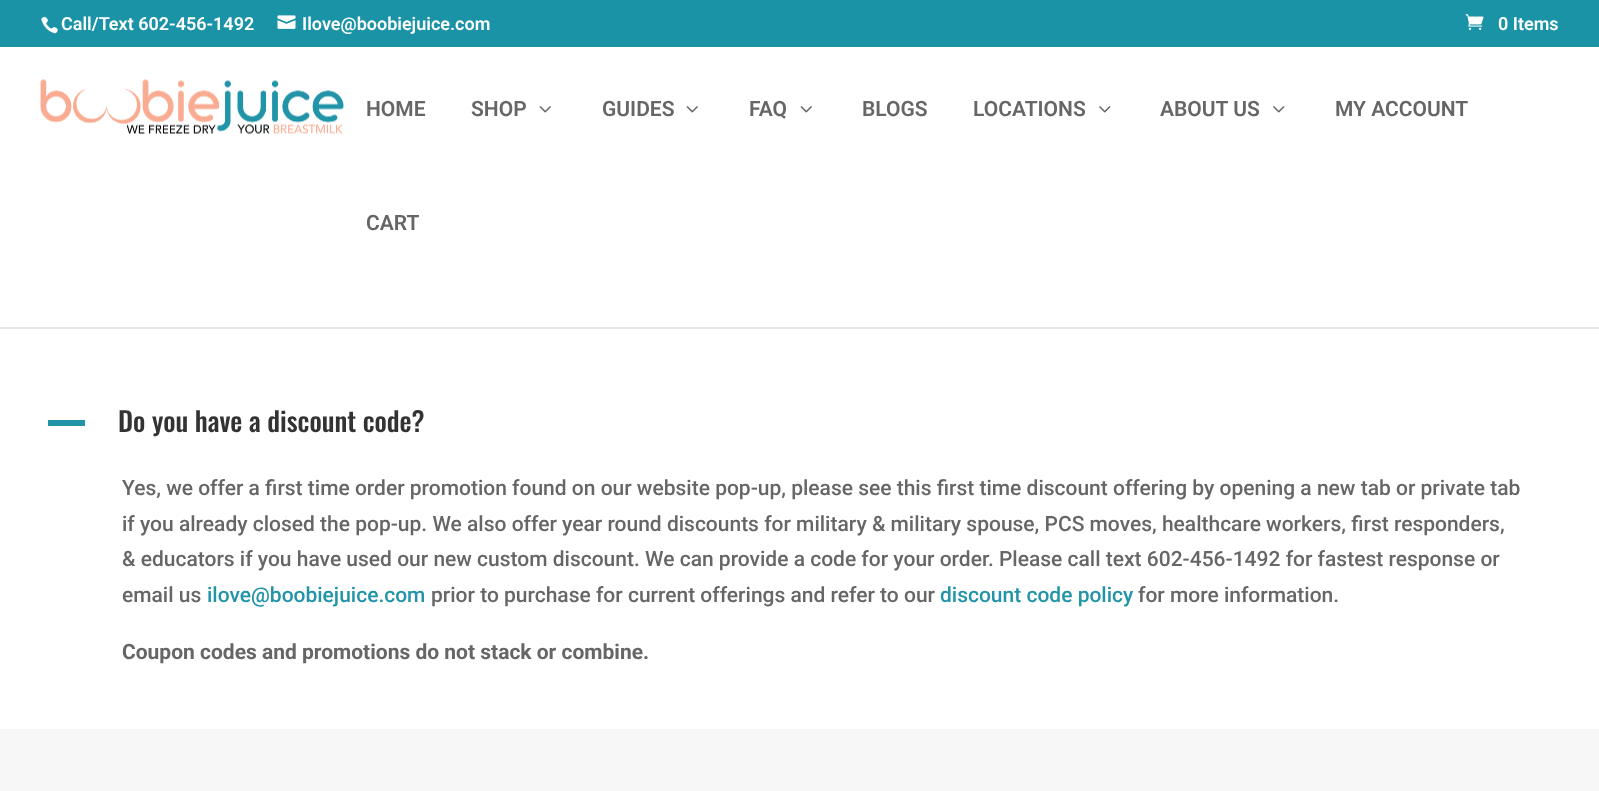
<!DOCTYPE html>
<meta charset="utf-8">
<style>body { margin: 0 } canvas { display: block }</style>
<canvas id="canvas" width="1599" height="791"></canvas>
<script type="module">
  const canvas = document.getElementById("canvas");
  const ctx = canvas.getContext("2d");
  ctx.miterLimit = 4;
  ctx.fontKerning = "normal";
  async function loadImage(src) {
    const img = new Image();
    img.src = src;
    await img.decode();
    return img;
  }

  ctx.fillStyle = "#ffffff";
  ctx.fillRect(0, 0, 1599, 791);
  ctx.fillStyle = "#1b93a7";
  ctx.fillRect(0, 0, 1599, 47);
  ctx.drawImage(await loadImage("img1.png"), 41, 16, 17, 18);
  ctx.font = "600 18px Roboto";
  ctx.fillStyle = "#ffffff";
  ctx.fillText("Call/Text 602-456-1492", 61, 30);
  ctx.drawImage(await loadImage("img2.png"), 277, 15, 19, 14);
  ctx.fillText("Ilove@boobiejuice.com", 302, 30);
  ctx.drawImage(await loadImage("img3.png"), 1465, 14, 19, 16);
  ctx.fillText("0 Items", 1498, 30);
  ctx.fillStyle = "rgba(0, 0, 0, 0.1)";
  ctx.fillRect(0, 327, 1599, 2);
  ctx.drawImage(await loadImage("img4.png"), 40, 79, 304, 55);
  ctx.font = "600 21px Roboto";
  ctx.fillStyle = "#666666";
  ctx.fillText("HOME", 366, 116);
  ctx.fillText("SHOP", 471, 116);
  ctx.drawImage(await loadImage("img5.png"), 539, 106, 12, 7);
  ctx.fillText("GUIDES", 602, 116);
  ctx.drawImage(await loadImage("img5.png"), 686, 106, 12, 7);
  ctx.fillText("FAQ", 749, 116);
  ctx.drawImage(await loadImage("img5.png"), 800, 106, 12, 7);
  ctx.fillText("BLOGS", 862, 116);
  ctx.fillText("LOCATIONS", 973, 116);
  ctx.drawImage(await loadImage("img6.png"), 1099, 106, 12, 7);
  ctx.fillText("ABOUT US", 1160, 116);
  ctx.drawImage(await loadImage("img6.png"), 1273, 106, 12, 7);
  ctx.fillText("MY ACCOUNT", 1335, 116);
  ctx.fillText("CART", 366, 230);
  ctx.fillStyle = "#2194a8";
  ctx.fillRect(48, 420, 37, 6);
  ctx.font = "500 27px Oswald";
  ctx.fillStyle = "#333333";
  ctx.fillText("Do you have a discount code?", 118, 432);
  ctx.font = "500 21px Roboto";
  ctx.fillStyle = "#666666";
  ctx.fillText("Yes, we offer a first time order promotion found on our website pop-up, please see this first time discount offering by opening a new tab or private tab", 122, 495);
  ctx.fillText("if you already closed the pop-up. We also offer year round discounts for military & military spouse, PCS moves, healthcare workers, first responders,", 122, 531);
  ctx.fillText("& educators if you have used our new custom discount. We can provide a code for your order. Please call text 602-456-1492 for fastest response or", 122, 566);
  ctx.fillText("email us", 122, 602);
  ctx.fillStyle = "#2194a8";
  ctx.fillText("ilove@boobiejuice.com", 207, 602);
  ctx.fillStyle = "#666666";
  ctx.fillText("prior to purchase for current offerings and refer to our", 431, 602);
  ctx.fillStyle = "#2194a8";
  ctx.fillText("discount code policy", 940, 602);
  ctx.fillStyle = "#666666";
  ctx.fillText("for more information.", 1138, 602);
  ctx.font = "bold 21px Roboto";
  ctx.fillText("Coupon codes and promotions do not stack or combine.", 122, 659);
  ctx.fillStyle = "#f7f7f7";
  ctx.fillRect(0, 729, 1599, 62);
</script>
